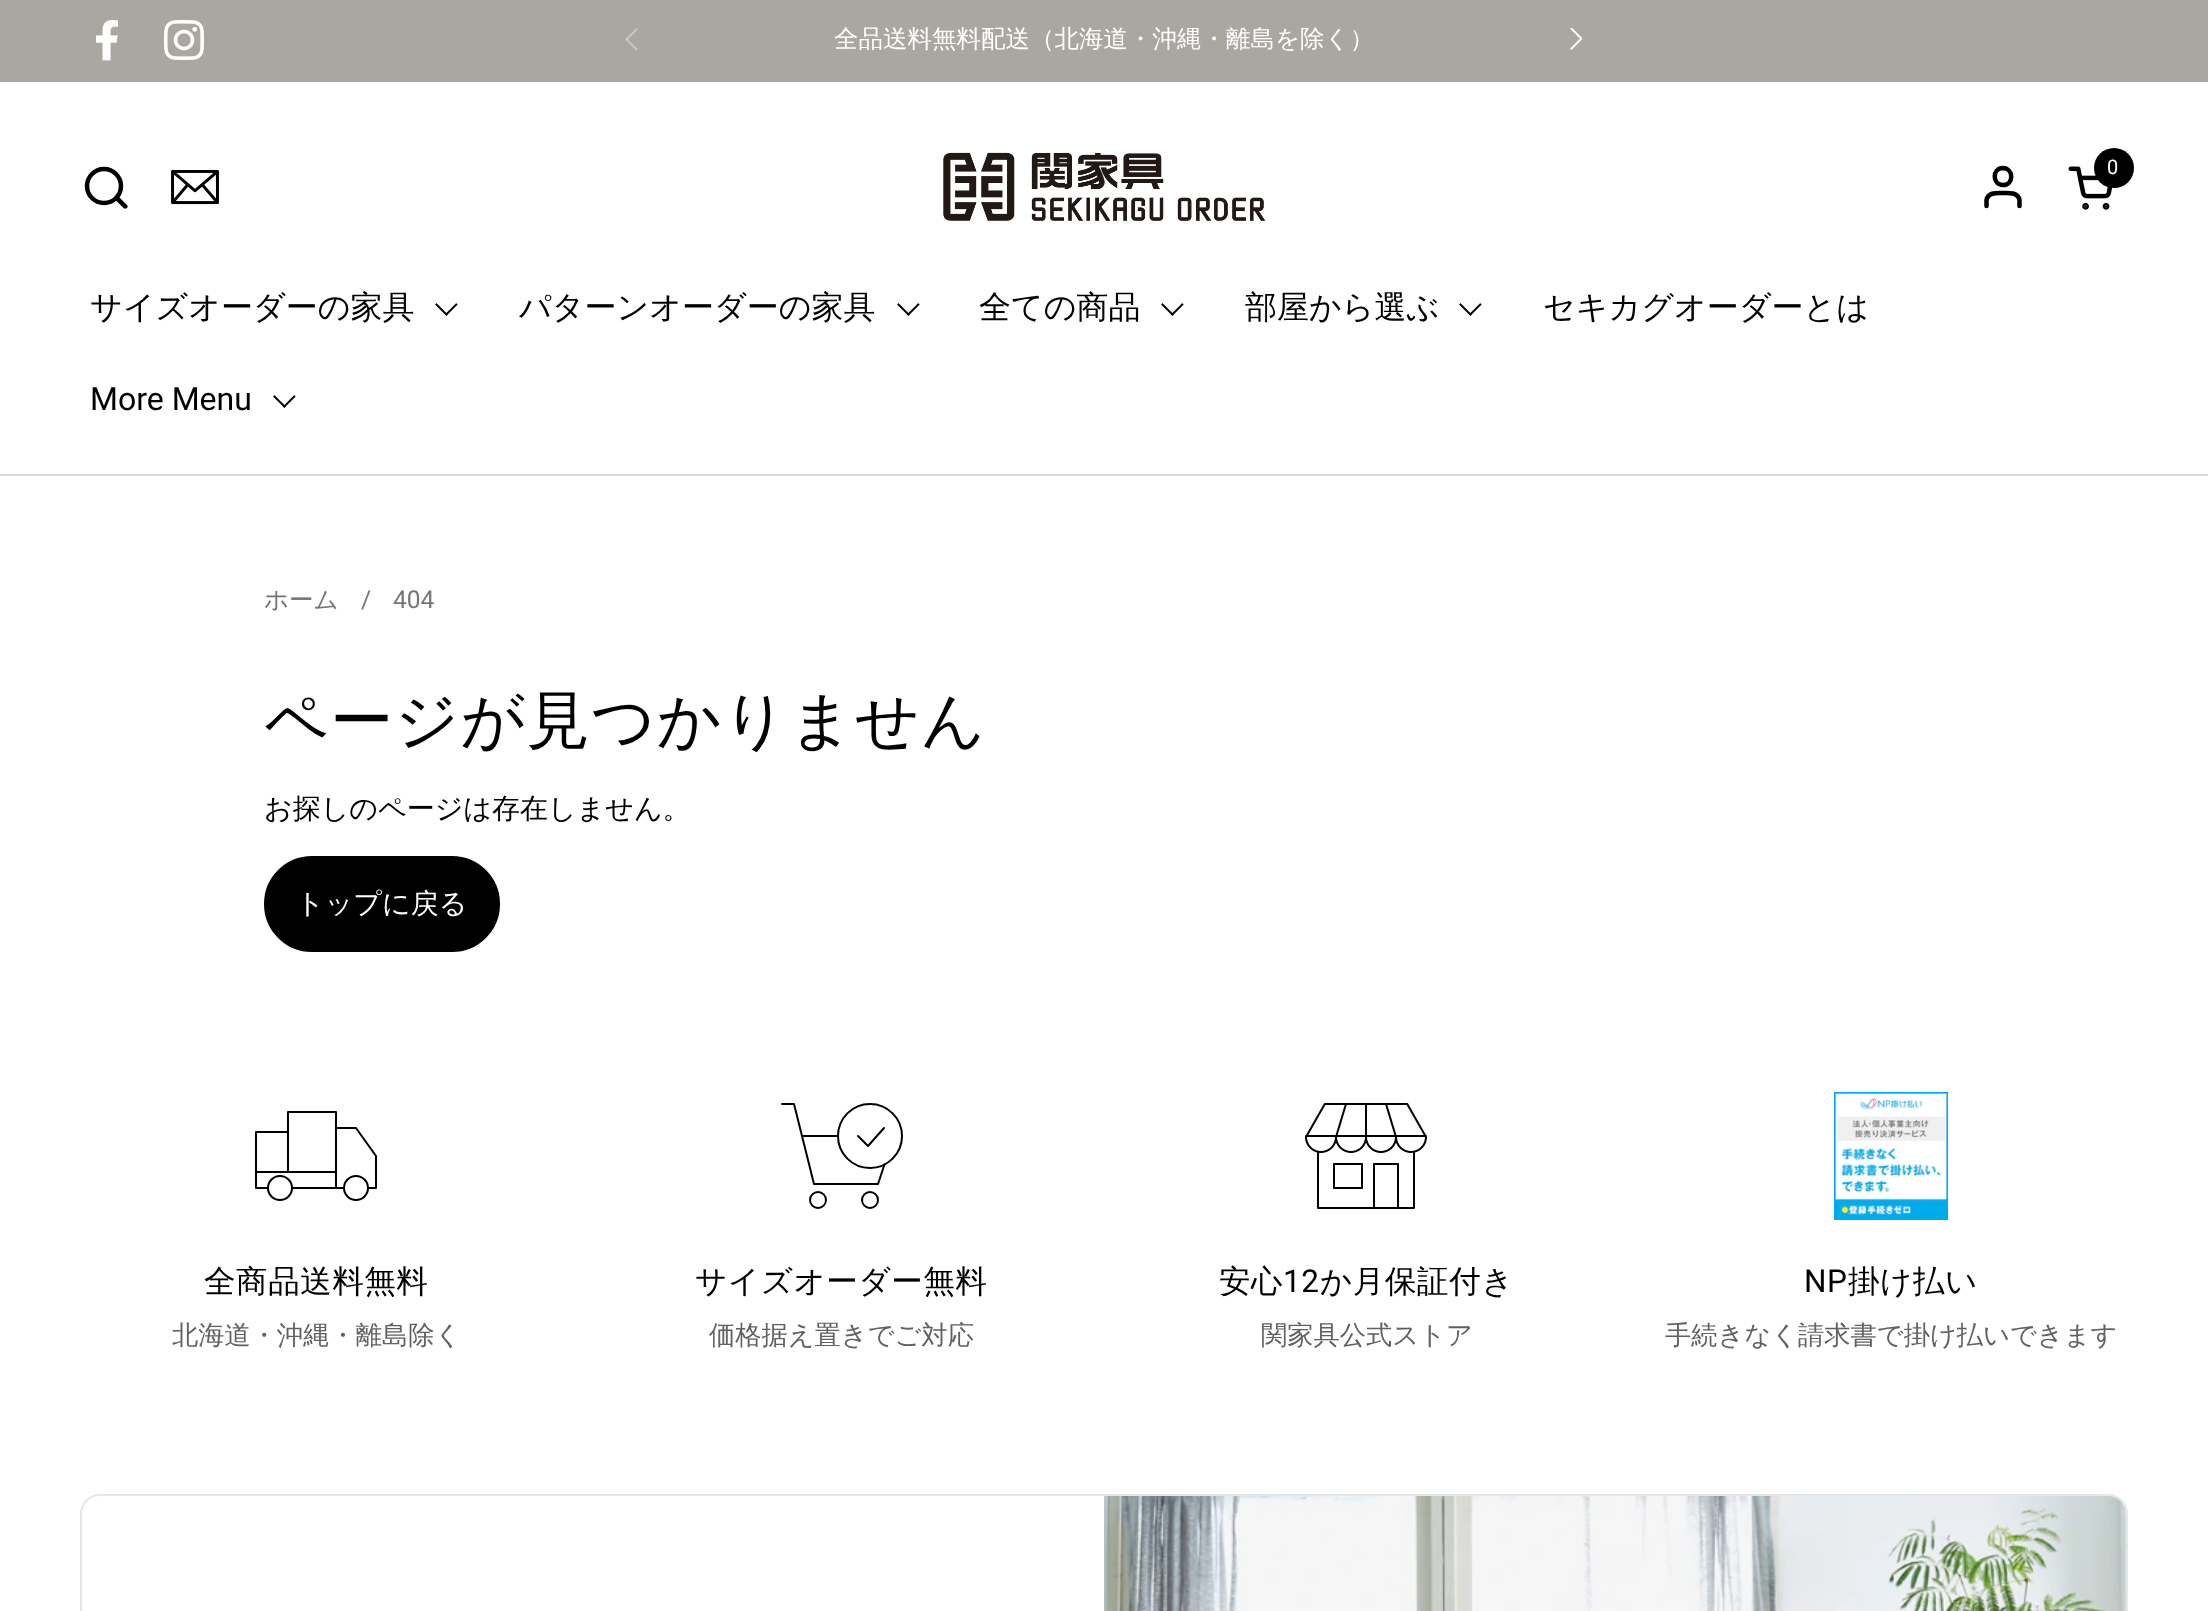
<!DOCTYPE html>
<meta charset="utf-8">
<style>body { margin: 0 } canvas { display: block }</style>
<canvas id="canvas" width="2208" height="1611"></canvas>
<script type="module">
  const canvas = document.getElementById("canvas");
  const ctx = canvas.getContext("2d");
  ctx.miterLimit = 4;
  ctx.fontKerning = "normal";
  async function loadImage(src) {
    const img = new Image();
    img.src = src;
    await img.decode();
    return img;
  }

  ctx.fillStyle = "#ffffff";
  ctx.fillRect(0, 0, 2208, 1611);
  ctx.fillStyle = "#aaa6a0";
  ctx.fillRect(0, 0, 2208, 82);
  ctx.drawImage(await loadImage("img1.png"), 96, 20, 22, 41);
  ctx.drawImage(await loadImage("img2.png"), 164, 20, 40, 40);
  ctx.drawImage(await loadImage("img3.png"), 626, 28, 12, 23);
  ctx.font = "500 24.5px WenQuanYi Zen Hei";
  ctx.fillStyle = "#ffffff";
  ctx.fillText("全品送料無料配送（北海道・沖縄・離島を除く）", 834, 47);
  ctx.drawImage(await loadImage("img4.png"), 1570, 28, 12, 22);
  ctx.beginPath();
  ctx.arc(104, 186, 17, 0, Math.PI * 2);
  ctx.strokeStyle = "#000000";
  ctx.lineWidth = 4.5;
  ctx.stroke();
  ctx.fillStyle = "#000000";
  ctx.beginPath();
  ctx.moveTo(119, 197);
  ctx.lineTo(117.5, 195);
  ctx.lineTo(114, 198.5);
  ctx.lineTo(115.5, 200);
  ctx.closePath();
  ctx.moveTo(123.5, 208);
  ctx.bezierCurveTo(126, 210, 129, 207, 127, 205);
  ctx.closePath();
  ctx.moveTo(115.5, 200);
  ctx.lineTo(123.5, 208);
  ctx.lineTo(127, 205);
  ctx.lineTo(119, 197);
  ctx.closePath();
  ctx.fill();
  ctx.drawImage(await loadImage("img5.png"), 171, 170, 48, 35);
  ctx.drawImage(await loadImage("img6.png"), 943, 152, 323, 69);
  ctx.beginPath();
  ctx.moveTo(2019.5, 206);
  ctx.lineTo(2019.5, 200);
  ctx.bezierCurveTo(2018, 192, 2009, 193, 2003, 193);
  ctx.bezierCurveTo(1997, 193, 1988, 192, 1986.5, 200);
  ctx.lineTo(1986.5, 206);
  ctx.moveTo(2003, 185);
  ctx.bezierCurveTo(2014, 185, 2014, 168.5, 2003, 168);
  ctx.bezierCurveTo(1992, 168, 1992, 185, 2003, 185);
  ctx.closePath();
  ctx.lineCap = "round";
  ctx.lineJoin = "round";
  ctx.stroke();
  ctx.beginPath();
  ctx.arc(2114, 168, 20, 0, Math.PI * 2);
  ctx.fill();
  ctx.font = "20px Roboto";
  ctx.fillStyle = "#ffffff";
  ctx.fillText("0", 2107, 174);
  ctx.drawImage(await loadImage("img7.png"), 2068, 166, 44, 44);
  ctx.font = "500 32px WenQuanYi Zen Hei";
  ctx.fillStyle = "#000000";
  ctx.fillText("サイズオーダーの家具", 90, 318);
  ctx.drawImage(await loadImage("img8.png"), 435, 303, 23, 13);
  ctx.fillText("パターンオーダーの家具", 519, 318);
  ctx.drawImage(await loadImage("img8.png"), 897, 303, 23, 13);
  ctx.fillText("全ての商品", 979, 318);
  ctx.drawImage(await loadImage("img8.png"), 1161, 303, 23, 13);
  ctx.fillText("部屋から選ぶ", 1245, 318);
  ctx.drawImage(await loadImage("img8.png"), 1459, 303, 23, 13);
  ctx.fillText("セキカグオーダーとは", 1543, 318);
  ctx.font = "32px Roboto";
  ctx.fillText("More Menu", 90, 410);
  ctx.drawImage(await loadImage("img8.png"), 273, 395, 23, 13);
  ctx.fillStyle = "#d9d9d9";
  ctx.fillRect(0, 474, 2208, 2);
  ctx.font = "500 24.5px WenQuanYi Zen Hei";
  ctx.fillStyle = "#757575";
  ctx.fillText("ホーム", 264, 608);
  ctx.font = "24.5px Roboto";
  ctx.fillText("/", 361, 608);
  ctx.fillText("404", 393, 608);
  ctx.letterSpacing = "1.25px";
  ctx.font = "500 63.25px WenQuanYi Zen Hei";
  ctx.fillStyle = "#000000";
  ctx.fillText("ページが見つかりません", 264, 742);
  ctx.letterSpacing = "0px";
  ctx.font = "500 28px WenQuanYi Zen Hei";
  ctx.fillText("お探しのページは存在しません。", 264, 818);
  ctx.beginPath();
  ctx.roundRect(265, 857, 234, 94, 47);
  ctx.fill();
  ctx.lineWidth = 2;
  ctx.lineJoin = "miter";
  ctx.stroke();
  ctx.fillStyle = "#ffffff";
  ctx.fillText("トップに戻る", 296, 913);
  ctx.beginPath();
  ctx.moveTo(256, 1172);
  ctx.lineTo(256, 1132);
  ctx.lineTo(288, 1132);
  ctx.moveTo(288, 1172);
  ctx.lineTo(288, 1112);
  ctx.lineTo(336, 1112);
  ctx.lineTo(336, 1128);
  ctx.lineJoin = "round";
  ctx.stroke();
  ctx.beginPath();
  ctx.moveTo(336, 1172);
  ctx.lineTo(336, 1128);
  ctx.lineTo(356, 1128);
  ctx.lineTo(376, 1156);
  ctx.lineTo(376, 1188);
  ctx.lineTo(368, 1188);
  ctx.stroke();
  ctx.beginPath();
  ctx.arc(280, 1188, 12, 0, Math.PI * 2);
  ctx.stroke();
  ctx.beginPath();
  ctx.arc(356, 1188, 12, 0, Math.PI * 2);
  ctx.stroke();
  ctx.beginPath();
  ctx.moveTo(268, 1188);
  ctx.lineTo(256, 1188);
  ctx.lineTo(256, 1172);
  ctx.lineTo(336, 1172);
  ctx.lineTo(336, 1188);
  ctx.lineTo(292, 1188);
  ctx.moveTo(336, 1188);
  ctx.lineTo(344, 1188);
  ctx.stroke();
  ctx.letterSpacing = "0.6px";
  ctx.font = "500 31.5px WenQuanYi Zen Hei";
  ctx.fillStyle = "#000000";
  ctx.fillText("全商品送料無料", 204, 1292);
  ctx.letterSpacing = "0px";
  ctx.font = "500 26.25px WenQuanYi Zen Hei";
  ctx.fillStyle = "#616161";
  ctx.fillText("北海道・沖縄・離島除く", 172, 1344);
  ctx.beginPath();
  ctx.moveTo(838, 1136);
  ctx.lineTo(802, 1136);
  ctx.moveTo(782, 1104);
  ctx.lineTo(794, 1104);
  ctx.lineTo(814, 1184);
  ctx.lineTo(878, 1184);
  ctx.lineTo(884.5, 1164.5);
  ctx.stroke();
  ctx.beginPath();
  ctx.arc(818, 1200, 8, 0, Math.PI * 2);
  ctx.stroke();
  ctx.beginPath();
  ctx.arc(870, 1200, 8, 0, Math.PI * 2);
  ctx.stroke();
  ctx.beginPath();
  ctx.arc(870, 1136, 32, 0, Math.PI * 2);
  ctx.stroke();
  ctx.beginPath();
  ctx.moveTo(884, 1128);
  ctx.lineTo(868, 1146);
  ctx.lineTo(858, 1136);
  ctx.stroke();
  ctx.letterSpacing = "0.6px";
  ctx.font = "500 31.5px WenQuanYi Zen Hei";
  ctx.fillStyle = "#000000";
  ctx.fillText("サイズオーダー無料", 695, 1292);
  ctx.letterSpacing = "0px";
  ctx.font = "500 26.25px WenQuanYi Zen Hei";
  ctx.fillStyle = "#616161";
  ctx.fillText("価格据え置きでご対応", 709, 1344);
  ctx.drawImage(await loadImage("img9.png"), 1305, 1103, 122, 106);
  ctx.letterSpacing = "0.6px";
  ctx.font = "500 31.5px WenQuanYi Zen Hei";
  ctx.fillStyle = "#000000";
  ctx.fillText("安心", 1219, 1292);
  ctx.font = "31.5px Roboto";
  ctx.fillText("12", 1283, 1292);
  ctx.font = "500 31.5px WenQuanYi Zen Hei";
  ctx.fillText("か月保証付き", 1320, 1292);
  ctx.letterSpacing = "0px";
  ctx.font = "500 26.25px WenQuanYi Zen Hei";
  ctx.fillStyle = "#616161";
  ctx.fillText("関家具公式ストア", 1261, 1344);
  ctx.drawImage(await loadImage("img10.png"), 1834, 1092, 114, 128);
  ctx.letterSpacing = "0.6px";
  ctx.font = "31.5px Roboto";
  ctx.fillStyle = "#000000";
  ctx.fillText("NP", 1804, 1292);
  ctx.font = "500 31.5px WenQuanYi Zen Hei";
  ctx.fillText("掛け払い", 1848, 1292);
  ctx.letterSpacing = "0px";
  ctx.font = "500 26.25px WenQuanYi Zen Hei";
  ctx.fillStyle = "#616161";
  ctx.fillText("手続きなく請求書で掛け払いできます", 1665, 1344);
  ctx.beginPath();
  ctx.roundRect(81, 1495, 2046, 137, 19);
  ctx.strokeStyle = "#e6e6e6";
  ctx.lineJoin = "miter";
  ctx.stroke();
  ctx.drawImage(await loadImage("img11.png"), 1104, 1496, 1022, 115);
</script>
